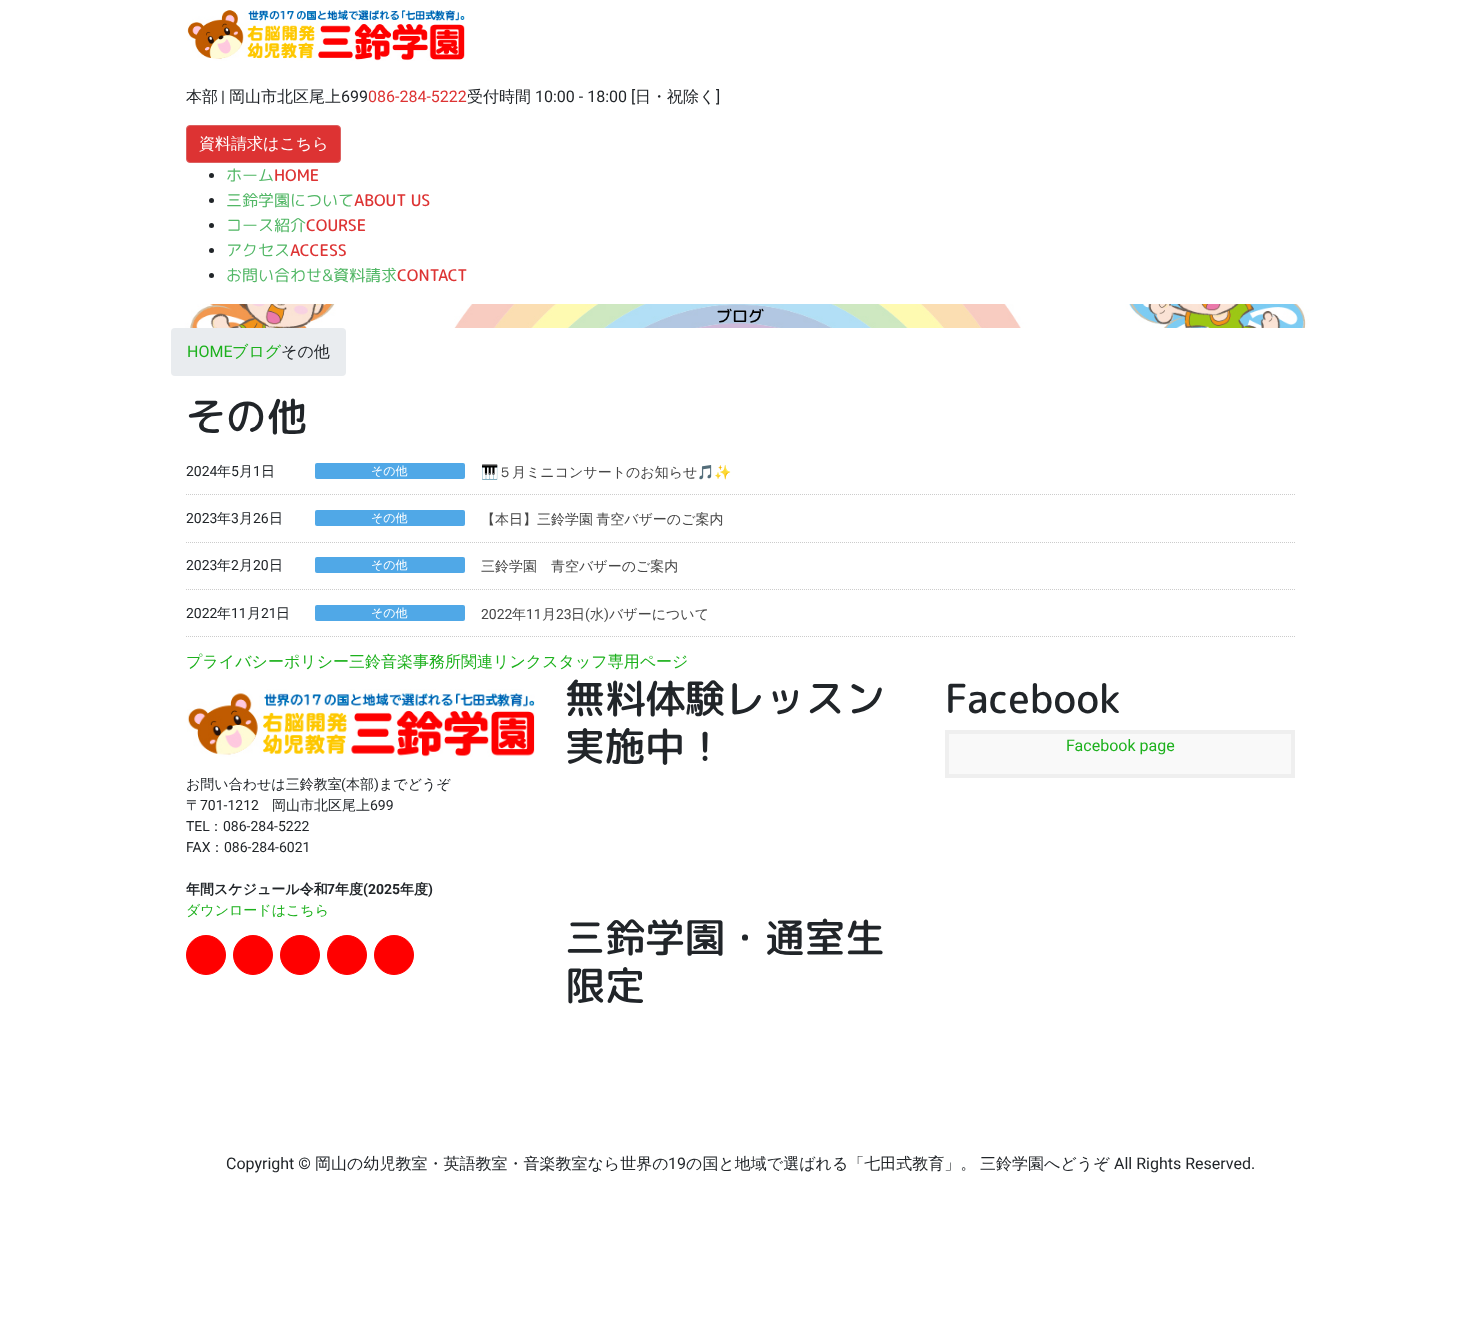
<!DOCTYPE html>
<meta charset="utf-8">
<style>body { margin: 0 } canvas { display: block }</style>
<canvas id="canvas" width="1481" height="1334"></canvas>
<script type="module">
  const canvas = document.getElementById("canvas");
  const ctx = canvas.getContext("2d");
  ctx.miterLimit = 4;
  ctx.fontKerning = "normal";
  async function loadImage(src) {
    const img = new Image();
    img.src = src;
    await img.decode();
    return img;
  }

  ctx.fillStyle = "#ffffff";
  ctx.fillRect(0, 0, 1481, 1334);
  ctx.drawImage(await loadImage("img1.png"), 187, 10, 278, 51);
  ctx.font = "500 16px WenQuanYi Zen Hei";
  ctx.fillStyle = "#212529";
  ctx.fillText("本部", 186, 102);
  ctx.font = "16px Roboto";
  ctx.fillText("|", 221, 102);
  ctx.font = "500 16px WenQuanYi Zen Hei";
  ctx.fillText("岡山市北区尾上", 229, 102);
  ctx.font = "16px Roboto";
  ctx.fillText("699", 341, 102);
  ctx.fillStyle = "#dd3333";
  ctx.fillText("086-284-5222", 368, 102);
  ctx.font = "500 16px WenQuanYi Zen Hei";
  ctx.fillStyle = "#212529";
  ctx.fillText("受付時間", 467, 102);
  ctx.font = "16px Roboto";
  ctx.fillText("10:00 - 18:00 [", 535, 102);
  ctx.font = "500 16px WenQuanYi Zen Hei";
  ctx.fillText("日・祝除く", 635, 102);
  ctx.font = "16px Roboto";
  ctx.fillText("]", 716, 102);
  ctx.fillStyle = "#dd3333";
  ctx.beginPath();
  ctx.roundRect(186.5, 125.5, 154, 37, 3.5);
  ctx.fill();
  ctx.strokeStyle = "#dd6161";
  ctx.stroke();
  ctx.font = "500 16px WenQuanYi Zen Hei";
  ctx.fillStyle = "#ffffff";
  ctx.fillText("資料請求はこちら", 199, 149);
  ctx.fillStyle = "#212529";
  ctx.beginPath();
  ctx.arc(211.5, 175.5, 2.5, 0, Math.PI * 2);
  ctx.fill();
  ctx.font = "16px 'Rounded Mplus 1c'";
  ctx.fillStyle = "#52b766";
  ctx.fillText("ホーム", 226, 181);
  ctx.font = "500 16px 'Rounded Mplus 1c'";
  ctx.fillStyle = "#dd3333";
  ctx.fillText("HOME", 274, 181);
  ctx.fillStyle = "#212529";
  ctx.beginPath();
  ctx.arc(211.5, 200.5, 2.5, 0, Math.PI * 2);
  ctx.fill();
  ctx.font = "16px 'Rounded Mplus 1c'";
  ctx.fillStyle = "#52b766";
  ctx.fillText("三鈴学園について", 226, 206);
  ctx.font = "500 16px 'Rounded Mplus 1c'";
  ctx.fillStyle = "#dd3333";
  ctx.fillText("ABOUT US", 354, 206);
  ctx.fillStyle = "#212529";
  ctx.beginPath();
  ctx.arc(211.5, 225.5, 2.5, 0, Math.PI * 2);
  ctx.fill();
  ctx.font = "16px 'Rounded Mplus 1c'";
  ctx.fillStyle = "#52b766";
  ctx.fillText("コース紹介", 226, 231);
  ctx.font = "500 16px 'Rounded Mplus 1c'";
  ctx.fillStyle = "#dd3333";
  ctx.fillText("COURSE", 306, 231);
  ctx.fillStyle = "#212529";
  ctx.beginPath();
  ctx.arc(211.5, 250.5, 2.5, 0, Math.PI * 2);
  ctx.fill();
  ctx.font = "16px 'Rounded Mplus 1c'";
  ctx.fillStyle = "#52b766";
  ctx.fillText("アクセス", 226, 256);
  ctx.font = "500 16px 'Rounded Mplus 1c'";
  ctx.fillStyle = "#dd3333";
  ctx.fillText("ACCESS", 290, 256);
  ctx.fillStyle = "#212529";
  ctx.beginPath();
  ctx.arc(211.5, 275.5, 2.5, 0, Math.PI * 2);
  ctx.fill();
  ctx.font = "16px 'Rounded Mplus 1c'";
  ctx.fillStyle = "#52b766";
  ctx.fillText("お問い合わせ&資料請求", 226, 281);
  ctx.font = "500 16px 'Rounded Mplus 1c'";
  ctx.fillStyle = "#dd3333";
  ctx.fillText("CONTACT", 397, 281);
  ctx.drawImage(await loadImage("img2.png"), 0, 304, 1481, 24);
  ctx.fillStyle = "#000000";
  ctx.fillText("ブログ", 716, 322);
  ctx.fillStyle = "#e9ecef";
  ctx.beginPath();
  ctx.roundRect(171, 328, 175, 48, 4);
  ctx.fill();
  ctx.font = "16px Roboto";
  ctx.fillStyle = "#1db11d";
  ctx.fillText("HOME", 187, 357);
  ctx.font = "500 16px WenQuanYi Zen Hei";
  ctx.fillText("ブログ", 232, 357);
  ctx.fillStyle = "#212529";
  ctx.fillText("その他", 281, 357);
  ctx.font = "500 40px 'Rounded Mplus 1c'";
  ctx.fillText("その他", 186, 431);
  ctx.beginPath();
  ctx.moveTo(186, 494.5);
  ctx.lineTo(1296, 494.5);
  ctx.strokeStyle = "#cccccc";
  ctx.setLineDash([1, 1]);
  ctx.stroke();
  ctx.font = "14px Roboto";
  ctx.fillText("2024", 186, 476);
  ctx.font = "500 14px WenQuanYi Zen Hei";
  ctx.fillText("年", 217, 476);
  ctx.font = "14px Roboto";
  ctx.fillText("5", 231, 476);
  ctx.font = "500 14px WenQuanYi Zen Hei";
  ctx.fillText("月", 239, 476);
  ctx.font = "14px Roboto";
  ctx.fillText("1", 253, 476);
  ctx.font = "500 14px WenQuanYi Zen Hei";
  ctx.fillText("日", 261, 476);
  ctx.fillStyle = "#50a8e7";
  ctx.beginPath();
  ctx.roundRect(315, 463, 150, 16, 2);
  ctx.fill();
  ctx.font = "500 12px WenQuanYi Zen Hei";
  ctx.fillStyle = "#ffffff";
  ctx.fillText("その他", 371, 475);
  ctx.save();
  ctx.beginPath();
  ctx.rect(481, 461, 815, 22);
  ctx.clip();
  ctx.font = "14px Noto Color Emoji";
  ctx.fillStyle = "#464646";
  ctx.fillText("🎹", 481, 477);
  ctx.restore();
  ctx.font = "500 14px WenQuanYi Zen Hei";
  ctx.fillStyle = "#464646";
  ctx.fillText("５月ミニコンサートのお知らせ", 498, 477);
  ctx.font = "14px Noto Color Emoji";
  ctx.fillText("🎵✨", 697, 477);
  ctx.beginPath();
  ctx.moveTo(186, 542.5);
  ctx.lineTo(1296, 542.5);
  ctx.stroke();
  ctx.font = "14px Roboto";
  ctx.fillStyle = "#212529";
  ctx.fillText("2023", 186, 523);
  ctx.font = "500 14px WenQuanYi Zen Hei";
  ctx.fillText("年", 217, 523);
  ctx.font = "14px Roboto";
  ctx.fillText("3", 231, 523);
  ctx.font = "500 14px WenQuanYi Zen Hei";
  ctx.fillText("月", 239, 523);
  ctx.font = "14px Roboto";
  ctx.fillText("26", 253, 523);
  ctx.font = "500 14px WenQuanYi Zen Hei";
  ctx.fillText("日", 269, 523);
  ctx.fillStyle = "#50a8e7";
  ctx.beginPath();
  ctx.roundRect(315, 510, 150, 16, 2);
  ctx.fill();
  ctx.font = "500 12px WenQuanYi Zen Hei";
  ctx.fillStyle = "#ffffff";
  ctx.fillText("その他", 371, 522);
  ctx.wordSpacing = "-1px";
  ctx.font = "500 14px WenQuanYi Zen Hei";
  ctx.fillStyle = "#464646";
  ctx.fillText("【本日】三鈴学園 青空バザーのご案内", 481, 524);
  ctx.beginPath();
  ctx.moveTo(186, 589.5);
  ctx.lineTo(1296, 589.5);
  ctx.stroke();
  ctx.wordSpacing = "0px";
  ctx.font = "14px Roboto";
  ctx.fillStyle = "#212529";
  ctx.fillText("2023", 186, 570);
  ctx.font = "500 14px WenQuanYi Zen Hei";
  ctx.fillText("年", 217, 570);
  ctx.font = "14px Roboto";
  ctx.fillText("2", 231, 570);
  ctx.font = "500 14px WenQuanYi Zen Hei";
  ctx.fillText("月", 239, 570);
  ctx.font = "14px Roboto";
  ctx.fillText("20", 253, 570);
  ctx.font = "500 14px WenQuanYi Zen Hei";
  ctx.fillText("日", 269, 570);
  ctx.fillStyle = "#50a8e7";
  ctx.beginPath();
  ctx.roundRect(315, 557, 150, 16, 2);
  ctx.fill();
  ctx.font = "500 12px WenQuanYi Zen Hei";
  ctx.fillStyle = "#ffffff";
  ctx.fillText("その他", 371, 569);
  ctx.font = "500 14px WenQuanYi Zen Hei";
  ctx.fillStyle = "#464646";
  ctx.fillText("三鈴学園　青空バザーのご案内", 481, 571);
  ctx.beginPath();
  ctx.moveTo(186, 636.5);
  ctx.lineTo(1296, 636.5);
  ctx.stroke();
  ctx.font = "14px Roboto";
  ctx.fillStyle = "#212529";
  ctx.fillText("2022", 186, 618);
  ctx.font = "500 14px WenQuanYi Zen Hei";
  ctx.fillText("年", 217, 618);
  ctx.font = "14px Roboto";
  ctx.fillText("11", 231, 618);
  ctx.font = "500 14px WenQuanYi Zen Hei";
  ctx.fillText("月", 247, 618);
  ctx.font = "14px Roboto";
  ctx.fillText("21", 261, 618);
  ctx.font = "500 14px WenQuanYi Zen Hei";
  ctx.fillText("日", 276, 618);
  ctx.fillStyle = "#50a8e7";
  ctx.beginPath();
  ctx.roundRect(315, 605, 150, 16, 2);
  ctx.fill();
  ctx.font = "500 12px WenQuanYi Zen Hei";
  ctx.fillStyle = "#ffffff";
  ctx.fillText("その他", 371, 617);
  ctx.font = "14px Roboto";
  ctx.fillStyle = "#464646";
  ctx.fillText("2022", 481, 619);
  ctx.font = "500 14px WenQuanYi Zen Hei";
  ctx.fillText("年", 512, 619);
  ctx.font = "14px Roboto";
  ctx.fillText("11", 526, 619);
  ctx.font = "500 14px WenQuanYi Zen Hei";
  ctx.fillText("月", 542, 619);
  ctx.font = "14px Roboto";
  ctx.fillText("23", 556, 619);
  ctx.font = "500 14px WenQuanYi Zen Hei";
  ctx.fillText("日", 571, 619);
  ctx.font = "14px Roboto";
  ctx.fillText("(", 585, 619);
  ctx.font = "500 14px WenQuanYi Zen Hei";
  ctx.fillText("水", 590, 619);
  ctx.font = "14px Roboto";
  ctx.fillText(")", 604, 619);
  ctx.font = "500 14px WenQuanYi Zen Hei";
  ctx.fillText("バザーについて", 609, 619);
  ctx.font = "500 16px WenQuanYi Zen Hei";
  ctx.fillStyle = "#1db11d";
  ctx.fillText("プライバシーポリシー三鈴音楽事務所関連リンクスタッフ専用ページ", 186, 667);
  ctx.font = "500 40px 'Rounded Mplus 1c'";
  ctx.fillStyle = "#212529";
  ctx.fillText("無料体験レッスン", 565, 713);
  ctx.fillText("実施中！", 565, 761);
  ctx.fillText("三鈴学園・通室生", 565, 952);
  ctx.fillText("限定", 565, 1000);
  ctx.fillText("Facebook", 945, 713);
  ctx.fillStyle = "#f9f9f9";
  ctx.beginPath();
  ctx.rect(947, 732, 346, 44);
  ctx.fill();
  ctx.strokeStyle = "#efefef";
  ctx.lineWidth = 4;
  ctx.setLineDash([]);
  ctx.stroke();
  ctx.font = "16px Roboto";
  ctx.fillStyle = "#1db11d";
  ctx.fillText("Facebook page", 1066, 751);
  ctx.drawImage(await loadImage("img3.png"), 187, 689, 348, 68);
  ctx.font = "500 14px WenQuanYi Zen Hei";
  ctx.fillStyle = "#212529";
  ctx.fillText("お問い合わせは三鈴教室", 186, 789);
  ctx.font = "14px Roboto";
  ctx.fillText("(", 341, 789);
  ctx.font = "500 14px WenQuanYi Zen Hei";
  ctx.fillText("本部", 346, 789);
  ctx.font = "14px Roboto";
  ctx.fillText(")", 374, 789);
  ctx.font = "500 14px WenQuanYi Zen Hei";
  ctx.fillText("までどうぞ", 379, 789);
  ctx.fillText("〒", 186, 810);
  ctx.font = "14px Roboto";
  ctx.fillText("701-1212", 200, 810);
  ctx.font = "500 14px WenQuanYi Zen Hei";
  ctx.fillText("岡山市北区尾上", 272, 810);
  ctx.font = "14px Roboto";
  ctx.fillText("699", 370, 810);
  ctx.fillText("TEL", 186, 831);
  ctx.font = "500 14px WenQuanYi Zen Hei";
  ctx.fillText("：", 209, 831);
  ctx.font = "14px Roboto";
  ctx.fillText("086-284-5222", 223, 831);
  ctx.fillText("FAX", 186, 852);
  ctx.font = "500 14px WenQuanYi Zen Hei";
  ctx.fillText("：", 210, 852);
  ctx.font = "14px Roboto";
  ctx.fillText("086-284-6021", 224, 852);
  ctx.font = "bold 14px WenQuanYi Zen Hei";
  ctx.fillText("年間スケジュール令和", 186, 894);
  ctx.font = "bold 14px Roboto";
  ctx.fillText("7", 327, 894);
  ctx.font = "bold 14px WenQuanYi Zen Hei";
  ctx.fillText("年度", 335, 894);
  ctx.font = "bold 14px Roboto";
  ctx.fillText("(2025", 363, 894);
  ctx.font = "bold 14px WenQuanYi Zen Hei";
  ctx.fillText("年度", 400, 894);
  ctx.font = "bold 14px Roboto";
  ctx.fillText(")", 428, 894);
  ctx.font = "500 14px WenQuanYi Zen Hei";
  ctx.fillStyle = "#1db11d";
  ctx.fillText("ダウンロードはこちら", 186, 915);
  ctx.fillStyle = "#ff0000";
  ctx.beginPath();
  ctx.arc(206, 955, 19.5, 0, Math.PI * 2);
  ctx.fill();
  ctx.strokeStyle = "#ff0000";
  ctx.lineWidth = 1;
  ctx.stroke();
  ctx.beginPath();
  ctx.arc(253, 955, 19.5, 0, Math.PI * 2);
  ctx.fill();
  ctx.stroke();
  ctx.beginPath();
  ctx.arc(300, 955, 19.5, 0, Math.PI * 2);
  ctx.fill();
  ctx.stroke();
  ctx.beginPath();
  ctx.arc(347, 955, 19.5, 0, Math.PI * 2);
  ctx.fill();
  ctx.stroke();
  ctx.beginPath();
  ctx.arc(394, 955, 19.5, 0, Math.PI * 2);
  ctx.fill();
  ctx.stroke();
  ctx.font = "16px Roboto";
  ctx.fillStyle = "#212529";
  ctx.fillText("Copyright ©", 226, 1169);
  ctx.font = "500 16px WenQuanYi Zen Hei";
  ctx.fillText("岡山の幼児教室・英語教室・音楽教室なら世界の", 315, 1169);
  ctx.font = "16px Roboto";
  ctx.fillText("19", 668, 1169);
  ctx.font = "500 16px WenQuanYi Zen Hei";
  ctx.fillText("の国と地域で選ばれる「七田式教育」。", 686, 1169);
  ctx.fillText("三鈴学園へどうぞ", 980, 1169);
  ctx.font = "16px Roboto";
  ctx.fillText("All Rights Reserved.", 1114, 1169);
</script>
